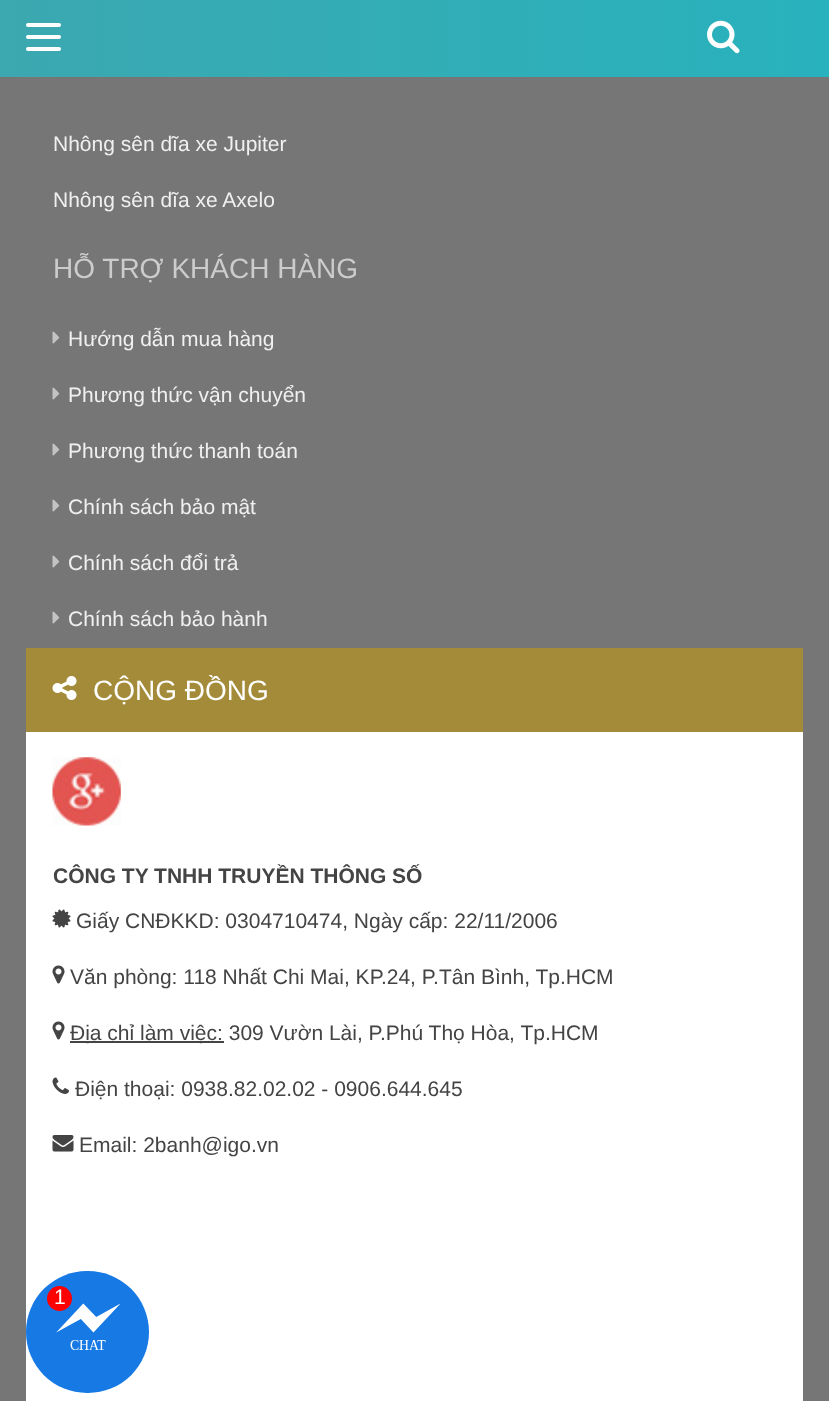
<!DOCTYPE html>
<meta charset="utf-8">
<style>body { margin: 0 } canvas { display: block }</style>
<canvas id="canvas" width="829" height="1401"></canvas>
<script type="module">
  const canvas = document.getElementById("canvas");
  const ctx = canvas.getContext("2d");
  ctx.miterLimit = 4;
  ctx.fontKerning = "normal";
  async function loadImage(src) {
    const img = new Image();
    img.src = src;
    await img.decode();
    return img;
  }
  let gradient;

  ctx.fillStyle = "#767676";
  ctx.fillRect(0, 0, 829, 1401);
  gradient = ctx.createLinearGradient(0, 39, 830, 38);
  gradient.addColorStop(0, "#3ca8b0");
  gradient.addColorStop(1, "#28b2bd");
  ctx.fillStyle = gradient;
  ctx.fillRect(0, 0, 829, 77);
  ctx.fillStyle = "#ffffff";
  ctx.beginPath();
  ctx.roundRect(26, 35, 35, 4, 2);
  ctx.fill();
  ctx.beginPath();
  ctx.roundRect(26, 23, 35, 4, 2);
  ctx.fill();
  ctx.beginPath();
  ctx.roundRect(26, 47, 35, 4, 2);
  ctx.fill();
  ctx.drawImage(await loadImage("img1.png"), 707, 20, 33, 34);
  ctx.font = "21px Liberation Sans";
  ctx.fillStyle = "#f0f0f0";
  ctx.fillText("Nhông sên dĩa xe Jupiter", 53, 151);
  ctx.fillText("Nhông sên dĩa xe Axelo", 53, 207);
  ctx.font = "28px Liberation Sans";
  ctx.fillStyle = "#cccccc";
  ctx.fillText("HỖ TRỢ KHÁCH HÀNG", 53, 278);
  ctx.drawImage(await loadImage("img2.png"), 52, 331, 8, 13);
  ctx.font = "21px Liberation Sans";
  ctx.fillStyle = "#f0f0f0";
  ctx.fillText("Hướng dẫn mua hàng", 68, 346);
  ctx.drawImage(await loadImage("img2.png"), 52, 387, 8, 13);
  ctx.fillText("Phương thức vận chuyển", 68, 402);
  ctx.drawImage(await loadImage("img2.png"), 52, 443, 8, 13);
  ctx.fillText("Phương thức thanh toán", 68, 458);
  ctx.drawImage(await loadImage("img2.png"), 52, 499, 8, 13);
  ctx.fillText("Chính sách bảo mật", 68, 514);
  ctx.drawImage(await loadImage("img2.png"), 52, 555, 8, 13);
  ctx.fillText("Chính sách đổi trả", 68, 570);
  ctx.drawImage(await loadImage("img2.png"), 52, 611, 8, 13);
  ctx.fillText("Chính sách bảo hành", 68, 626);
  ctx.fillStyle = "#ffffff";
  ctx.fillRect(26, 732, 777, 669);
  ctx.fillStyle = "#a48b39";
  ctx.fillRect(26, 648, 777, 84);
  ctx.drawImage(await loadImage("img3.png"), 52, 676, 25, 24);
  ctx.font = "28px Liberation Sans";
  ctx.fillStyle = "#ffffff";
  ctx.fillText("CỘNG ĐỒNG", 93, 700);
  ctx.drawImage(await loadImage("img4.png"), 52, 757, 69, 69);
  ctx.font = "bold 21px Liberation Sans";
  ctx.fillStyle = "#444444";
  ctx.fillText("CÔNG TY TNHH TRUYỀN THÔNG SỐ", 53, 883);
  ctx.drawImage(await loadImage("img5.png"), 52, 909, 19, 19);
  ctx.font = "21px Liberation Sans";
  ctx.fillText("Giấy CNĐKKD: 0304710474, Ngày cấp: 22/11/2006", 76, 928);
  ctx.drawImage(await loadImage("img6.png"), 52, 965, 13, 19);
  ctx.fillText("Văn phòng: 118 Nhất Chi Mai, KP.24, P.Tân Bình, Tp.HCM", 70, 984);
  ctx.drawImage(await loadImage("img6.png"), 52, 1021, 13, 19);
  ctx.fillRect(70, 1041, 154, 2);
  ctx.fillText("Địa chỉ làm việc: 309 Vườn Lài, P.Phú Thọ Hòa, Tp.HCM", 70, 1040);
  ctx.drawImage(await loadImage("img7.png"), 52, 1077, 17, 17);
  ctx.fillText("Điện thoại: 0938.82.02.02 - 0906.644.645", 75, 1096);
  ctx.drawImage(await loadImage("img8.png"), 52, 1135, 22, 17);
  ctx.fillText("Email: 2banh@igo.vn", 79, 1152);
  ctx.fillStyle = "#1679e4";
  ctx.beginPath();
  ctx.roundRect(26, 1271, 123, 122, 61);
  ctx.fill();
  ctx.drawImage(await loadImage("img9.png"), 56, 1303, 65, 47);
  ctx.fillStyle = "#ff0000";
  ctx.beginPath();
  ctx.arc(59.5, 1298.5, 12.5, 0, Math.PI * 2);
  ctx.fill();
  ctx.fillStyle = "#ffffff";
  ctx.fillText("1", 54, 1304);
</script>
